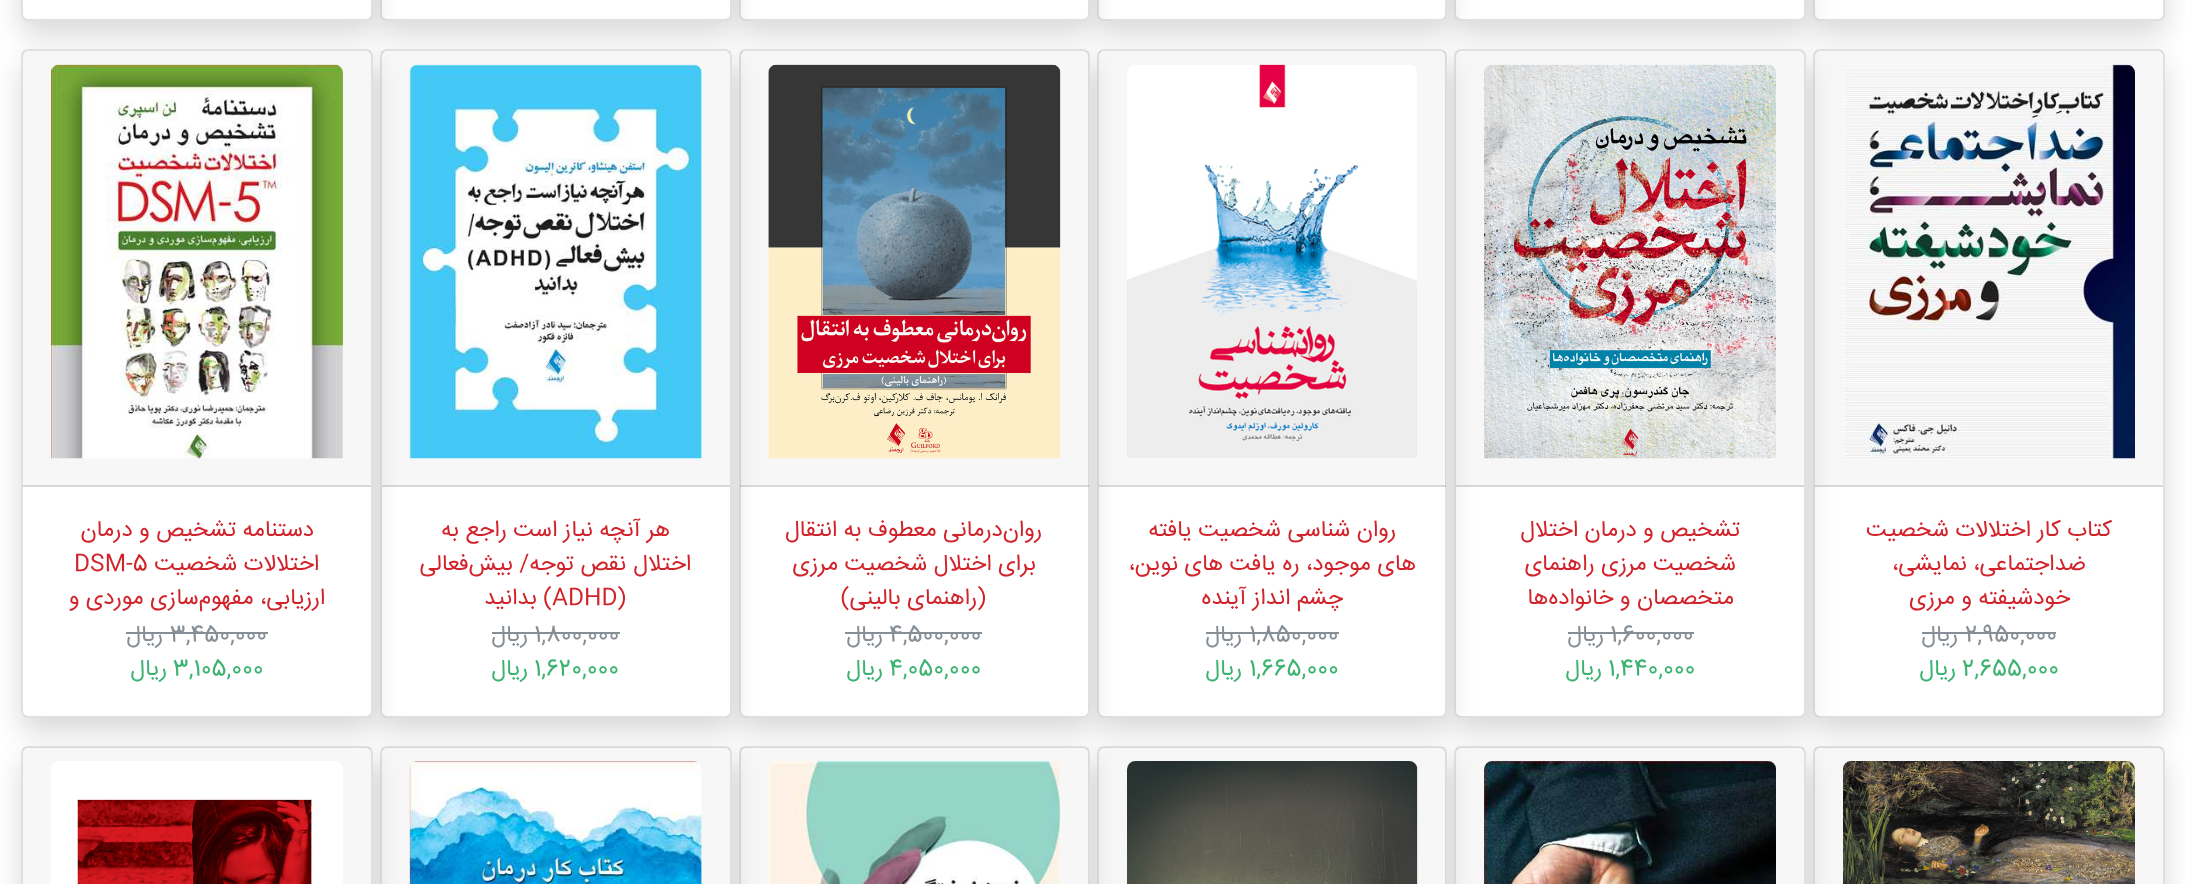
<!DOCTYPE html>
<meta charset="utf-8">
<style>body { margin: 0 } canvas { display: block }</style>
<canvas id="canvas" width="2185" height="884"></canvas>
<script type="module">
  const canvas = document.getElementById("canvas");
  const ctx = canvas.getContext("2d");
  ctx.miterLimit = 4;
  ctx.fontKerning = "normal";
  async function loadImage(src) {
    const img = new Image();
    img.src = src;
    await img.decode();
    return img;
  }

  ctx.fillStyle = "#ffffff";
  ctx.fillRect(0, 0, 2185, 884);
  ctx.fillStyle = "rgba(0, 0, 0, 0.15)";
  ctx.filter = "blur(14px)";
  ctx.beginPath();
  ctx.roundRect(1813, -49, 352, 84, 7);
  ctx.fill();
  ctx.filter = "none";
  ctx.fillStyle = "#ffffff";
  ctx.beginPath();
  ctx.roundRect(1813, -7, 352, 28, 7);
  ctx.fill();
  ctx.beginPath();
  ctx.roundRect(1814, -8, 350, 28, 6);
  ctx.strokeStyle = "rgba(0, 0, 0, 0.12)";
  ctx.lineWidth = 2;
  ctx.stroke();
  ctx.fillStyle = "rgba(0, 0, 0, 0.15)";
  ctx.filter = "blur(14px)";
  ctx.beginPath();
  ctx.roundRect(1454, -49, 352, 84, 7);
  ctx.fill();
  ctx.filter = "none";
  ctx.fillStyle = "#ffffff";
  ctx.beginPath();
  ctx.roundRect(1454, -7, 352, 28, 7);
  ctx.fill();
  ctx.beginPath();
  ctx.roundRect(1455, -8, 350, 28, 6);
  ctx.stroke();
  ctx.fillStyle = "rgba(0, 0, 0, 0.15)";
  ctx.filter = "blur(14px)";
  ctx.beginPath();
  ctx.roundRect(1097, -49, 350, 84, 7);
  ctx.fill();
  ctx.filter = "none";
  ctx.fillStyle = "#ffffff";
  ctx.beginPath();
  ctx.roundRect(1097, -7, 350, 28, 7);
  ctx.fill();
  ctx.beginPath();
  ctx.roundRect(1098, -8, 348, 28, 6);
  ctx.stroke();
  ctx.fillStyle = "rgba(0, 0, 0, 0.15)";
  ctx.filter = "blur(14px)";
  ctx.beginPath();
  ctx.roundRect(739, -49, 351, 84, 7);
  ctx.fill();
  ctx.filter = "none";
  ctx.fillStyle = "#ffffff";
  ctx.beginPath();
  ctx.roundRect(739, -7, 351, 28, 7);
  ctx.fill();
  ctx.beginPath();
  ctx.roundRect(740, -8, 349, 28, 6);
  ctx.stroke();
  ctx.fillStyle = "rgba(0, 0, 0, 0.15)";
  ctx.filter = "blur(14px)";
  ctx.beginPath();
  ctx.roundRect(380, -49, 352, 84, 7);
  ctx.fill();
  ctx.filter = "none";
  ctx.fillStyle = "#ffffff";
  ctx.beginPath();
  ctx.roundRect(380, -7, 352, 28, 7);
  ctx.fill();
  ctx.beginPath();
  ctx.roundRect(381, -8, 350, 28, 6);
  ctx.stroke();
  ctx.fillStyle = "rgba(0, 0, 0, 0.15)";
  ctx.filter = "blur(14px)";
  ctx.beginPath();
  ctx.roundRect(21, -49, 352, 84, 7);
  ctx.fill();
  ctx.filter = "none";
  ctx.fillStyle = "#ffffff";
  ctx.beginPath();
  ctx.roundRect(21, -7, 352, 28, 7);
  ctx.fill();
  ctx.beginPath();
  ctx.roundRect(22, -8, 350, 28, 6);
  ctx.stroke();
  ctx.fillStyle = "rgba(0, 0, 0, 0.15)";
  ctx.filter = "blur(14px)";
  ctx.beginPath();
  ctx.roundRect(1813, 63, 352, 669, 7);
  ctx.fill();
  ctx.filter = "none";
  ctx.fillStyle = "#ffffff";
  ctx.beginPath();
  ctx.roundRect(1813, 49, 352, 669, 7);
  ctx.fill();
  ctx.beginPath();
  ctx.roundRect(1814, 50, 350, 667, 6);
  ctx.stroke();
  ctx.fillStyle = "rgba(0, 0, 0, 0.03)";
  ctx.fillRect(1815, 51, 348, 434);
  ctx.fillStyle = "#d8d8d8";
  ctx.fillRect(1815, 485, 348, 2);
  ctx.drawImage(await loadImage("img1.png"), 1843, 64, 292, 395);
  ctx.direction = "rtl";
  ctx.font = "22.75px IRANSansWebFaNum";
  ctx.fillStyle = "#d2232a";
  ctx.fillText("کتاب کار اختلالات شخصیت", 2112, 536);
  ctx.fillText("ضد‌اجتماعی، نمایشی،", 2086, 570);
  ctx.fillText("خودشیفته و مرزی", 2070, 604);
  ctx.direction = "ltr";
  ctx.fillStyle = "#868e96";
  ctx.fillText("2,950,000", 1965, 641);
  ctx.fillRect(1922, 632, 43, 2);
  ctx.fillRect(1965, 632, 91, 2);
  ctx.direction = "rtl";
  ctx.fillText("ریال", 1958, 641);
  ctx.direction = "ltr";
  ctx.fillStyle = "#3cb371";
  ctx.fillText("2,655,000", 1962, 675);
  ctx.direction = "rtl";
  ctx.fillText("ریال", 1956, 675);
  ctx.fillStyle = "rgba(0, 0, 0, 0.15)";
  ctx.filter = "blur(14px)";
  ctx.beginPath();
  ctx.roundRect(1454, 63, 352, 669, 7);
  ctx.fill();
  ctx.filter = "none";
  ctx.fillStyle = "#ffffff";
  ctx.beginPath();
  ctx.roundRect(1454, 49, 352, 669, 7);
  ctx.fill();
  ctx.beginPath();
  ctx.roundRect(1455, 50, 350, 667, 6);
  ctx.stroke();
  ctx.fillStyle = "rgba(0, 0, 0, 0.03)";
  ctx.fillRect(1456, 51, 348, 434);
  ctx.fillStyle = "#d8d8d8";
  ctx.fillRect(1456, 485, 348, 2);
  ctx.drawImage(await loadImage("img2.png"), 1484, 64, 292, 395);
  ctx.fillStyle = "#d2232a";
  ctx.fillText("تشخیص و درمان اختلال", 1740, 536);
  ctx.fillText("شخصیت مرزی راهنمای", 1736, 570);
  ctx.fillText("متخصصان و خانواده‌ها", 1734, 604);
  ctx.direction = "ltr";
  ctx.fillStyle = "#868e96";
  ctx.fillText("1,600,000", 1610, 641);
  ctx.fillRect(1568, 632, 42, 2);
  ctx.fillRect(1610, 632, 84, 2);
  ctx.direction = "rtl";
  ctx.fillText("ریال", 1604, 641);
  ctx.direction = "ltr";
  ctx.fillStyle = "#3cb371";
  ctx.fillText("1,440,000", 1608, 675);
  ctx.direction = "rtl";
  ctx.fillText("ریال", 1602, 675);
  ctx.fillStyle = "rgba(0, 0, 0, 0.15)";
  ctx.filter = "blur(14px)";
  ctx.beginPath();
  ctx.roundRect(1097, 63, 350, 669, 7);
  ctx.fill();
  ctx.filter = "none";
  ctx.fillStyle = "#ffffff";
  ctx.beginPath();
  ctx.roundRect(1097, 49, 350, 669, 7);
  ctx.fill();
  ctx.beginPath();
  ctx.roundRect(1098, 50, 348, 667, 6);
  ctx.stroke();
  ctx.fillStyle = "rgba(0, 0, 0, 0.03)";
  ctx.fillRect(1099, 51, 347, 436);
  ctx.fillStyle = "rgba(0, 0, 0, 0.12)";
  ctx.fillRect(1099, 485, 347, 2);
  ctx.drawImage(await loadImage("img3.png"), 1127, 64, 290, 394);
  ctx.fillStyle = "#d2232a";
  ctx.fillText("روان شناسی شخصیت یافته", 1396, 536);
  ctx.fillText("های موجود، ره یافت های نوین،", 1416, 570);
  ctx.fillText("چشم انداز آینده", 1343, 604);
  ctx.direction = "ltr";
  ctx.fillStyle = "#868e96";
  ctx.fillText("1,850,000", 1249, 641);
  ctx.fillRect(1206, 632, 44, 2);
  ctx.fillRect(1250, 632, 89, 2);
  ctx.direction = "rtl";
  ctx.fillText("ریال", 1242, 641);
  ctx.direction = "ltr";
  ctx.fillStyle = "#3cb371";
  ctx.fillText("1,665,000", 1249, 675);
  ctx.direction = "rtl";
  ctx.fillText("ریال", 1242, 675);
  ctx.fillStyle = "rgba(0, 0, 0, 0.15)";
  ctx.filter = "blur(14px)";
  ctx.beginPath();
  ctx.roundRect(739, 63, 351, 669, 7);
  ctx.fill();
  ctx.filter = "none";
  ctx.fillStyle = "#ffffff";
  ctx.beginPath();
  ctx.roundRect(739, 49, 351, 669, 7);
  ctx.fill();
  ctx.beginPath();
  ctx.roundRect(740, 50, 349, 667, 6);
  ctx.stroke();
  ctx.fillStyle = "rgba(0, 0, 0, 0.03)";
  ctx.fillRect(740, 51, 349, 436);
  ctx.fillStyle = "rgba(0, 0, 0, 0.12)";
  ctx.fillRect(740, 485, 349, 2);
  ctx.drawImage(await loadImage("img4.png"), 768, 64, 293, 395);
  ctx.fillStyle = "#d2232a";
  ctx.fillText("روان‌درمانی معطوف به انتقال", 1042, 536);
  ctx.fillText("برای اختلال شخصیت مرزی", 1036, 570);
  ctx.fillText("(راهنمای بالینی)", 986, 604);
  ctx.direction = "ltr";
  ctx.fillStyle = "#868e96";
  ctx.fillText("4,500,000", 889, 641);
  ctx.fillRect(845, 632, 44, 2);
  ctx.fillRect(889, 632, 93, 2);
  ctx.direction = "rtl";
  ctx.fillText("ریال", 883, 641);
  ctx.direction = "ltr";
  ctx.fillStyle = "#3cb371";
  ctx.fillText("4,050,000", 889, 675);
  ctx.direction = "rtl";
  ctx.fillText("ریال", 883, 675);
  ctx.fillStyle = "rgba(0, 0, 0, 0.15)";
  ctx.filter = "blur(14px)";
  ctx.beginPath();
  ctx.roundRect(380, 63, 352, 669, 7);
  ctx.fill();
  ctx.filter = "none";
  ctx.fillStyle = "#ffffff";
  ctx.beginPath();
  ctx.roundRect(380, 49, 352, 669, 7);
  ctx.fill();
  ctx.beginPath();
  ctx.roundRect(381, 50, 350, 667, 6);
  ctx.stroke();
  ctx.fillStyle = "rgba(0, 0, 0, 0.03)";
  ctx.fillRect(382, 51, 348, 434);
  ctx.fillStyle = "#d8d8d8";
  ctx.fillRect(382, 485, 348, 2);
  ctx.drawImage(await loadImage("img5.png"), 409, 64, 293, 395);
  ctx.fillStyle = "#d2232a";
  ctx.fillText("هر آنچه نیاز است راجع به", 670, 536);
  ctx.fillText("اختلال", 691, 570);
  ctx.fillText("نقص توجه/ بیش‌فعالی", 626, 570);
  ctx.fillText("(", 626, 604);
  ctx.direction = "ltr";
  ctx.fillText("ADHD", 552, 604);
  ctx.direction = "rtl";
  ctx.fillText(") بدانید", 552, 604);
  ctx.direction = "ltr";
  ctx.fillStyle = "#868e96";
  ctx.fillText("1,800,000", 534, 641);
  ctx.fillRect(492, 632, 42, 2);
  ctx.fillRect(534, 632, 86, 2);
  ctx.direction = "rtl";
  ctx.fillText("ریال", 528, 641);
  ctx.direction = "ltr";
  ctx.fillStyle = "#3cb371";
  ctx.fillText("1,620,000", 534, 675);
  ctx.direction = "rtl";
  ctx.fillText("ریال", 528, 675);
  ctx.fillStyle = "rgba(0, 0, 0, 0.15)";
  ctx.filter = "blur(14px)";
  ctx.beginPath();
  ctx.roundRect(21, 63, 352, 669, 7);
  ctx.fill();
  ctx.filter = "none";
  ctx.fillStyle = "#ffffff";
  ctx.beginPath();
  ctx.roundRect(21, 49, 352, 669, 7);
  ctx.fill();
  ctx.beginPath();
  ctx.roundRect(22, 50, 350, 667, 6);
  ctx.stroke();
  ctx.fillStyle = "rgba(0, 0, 0, 0.03)";
  ctx.fillRect(23, 51, 348, 434);
  ctx.fillStyle = "#d8d8d8";
  ctx.fillRect(23, 485, 348, 2);
  ctx.drawImage(await loadImage("img6.png"), 51, 64, 292, 395);
  ctx.fillStyle = "#d2232a";
  ctx.fillText("دستنامه تشخیص و درمان", 314, 536);
  ctx.fillText("اختلالات شخصیت", 319, 570);
  ctx.direction = "ltr";
  ctx.fillText("DSM-5", 74, 570);
  ctx.direction = "rtl";
  ctx.fillText("ارزیابی، مفهوم‌سازی موردی و", 325, 604);
  ctx.direction = "ltr";
  ctx.fillStyle = "#868e96";
  ctx.fillText("3,450,000", 170, 641);
  ctx.fillRect(126, 632, 44, 2);
  ctx.fillRect(170, 632, 98, 2);
  ctx.direction = "rtl";
  ctx.fillText("ریال", 163, 641);
  ctx.direction = "ltr";
  ctx.fillStyle = "#3cb371";
  ctx.fillText("3,105,000", 173, 675);
  ctx.direction = "rtl";
  ctx.fillText("ریال", 167, 675);
  ctx.fillStyle = "rgba(0, 0, 0, 0.15)";
  ctx.filter = "blur(14px)";
  ctx.beginPath();
  ctx.roundRect(1813, 760, 352, 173, 7);
  ctx.fill();
  ctx.filter = "none";
  ctx.fillStyle = "#ffffff";
  ctx.beginPath();
  ctx.roundRect(1814, 747, 350, 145, 6);
  ctx.fill();
  ctx.strokeStyle = "#dfdfdf";
  ctx.stroke();
  ctx.fillStyle = "rgba(0, 0, 0, 0.03)";
  ctx.fillRect(1815, 747, 348, 137);
  ctx.drawImage(await loadImage("img7.png"), 1843, 761, 292, 123);
  ctx.fillStyle = "rgba(0, 0, 0, 0.15)";
  ctx.filter = "blur(14px)";
  ctx.beginPath();
  ctx.roundRect(1454, 760, 352, 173, 7);
  ctx.fill();
  ctx.filter = "none";
  ctx.fillStyle = "#ffffff";
  ctx.beginPath();
  ctx.roundRect(1454, 746, 352, 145, 7);
  ctx.fill();
  ctx.beginPath();
  ctx.roundRect(1455, 747, 350, 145, 6);
  ctx.strokeStyle = "rgba(0, 0, 0, 0.12)";
  ctx.stroke();
  ctx.fillStyle = "rgba(0, 0, 0, 0.03)";
  ctx.fillRect(1456, 747, 348, 137);
  ctx.drawImage(await loadImage("img8.png"), 1484, 761, 292, 123);
  ctx.fillStyle = "rgba(0, 0, 0, 0.15)";
  ctx.filter = "blur(14px)";
  ctx.beginPath();
  ctx.roundRect(1097, 760, 350, 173, 7);
  ctx.fill();
  ctx.filter = "none";
  ctx.fillStyle = "#ffffff";
  ctx.beginPath();
  ctx.roundRect(1097, 746, 350, 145, 7);
  ctx.fill();
  ctx.beginPath();
  ctx.roundRect(1098, 747, 348, 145, 6);
  ctx.stroke();
  ctx.fillStyle = "rgba(0, 0, 0, 0.03)";
  ctx.fillRect(1099, 747, 347, 137);
  ctx.drawImage(await loadImage("img9.png"), 1127, 761, 291, 123);
  ctx.fillStyle = "rgba(0, 0, 0, 0.15)";
  ctx.filter = "blur(14px)";
  ctx.beginPath();
  ctx.roundRect(739, 760, 351, 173, 7);
  ctx.fill();
  ctx.filter = "none";
  ctx.fillStyle = "#ffffff";
  ctx.beginPath();
  ctx.roundRect(739, 746, 351, 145, 7);
  ctx.fill();
  ctx.beginPath();
  ctx.roundRect(740, 747, 349, 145, 6);
  ctx.stroke();
  ctx.fillStyle = "rgba(0, 0, 0, 0.03)";
  ctx.fillRect(740, 747, 349, 137);
  ctx.drawImage(await loadImage("img10.png"), 768, 761, 293, 123);
  ctx.fillStyle = "rgba(0, 0, 0, 0.15)";
  ctx.filter = "blur(14px)";
  ctx.beginPath();
  ctx.roundRect(380, 760, 352, 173, 7);
  ctx.fill();
  ctx.filter = "none";
  ctx.fillStyle = "#ffffff";
  ctx.beginPath();
  ctx.roundRect(380, 746, 352, 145, 7);
  ctx.fill();
  ctx.beginPath();
  ctx.roundRect(381, 747, 350, 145, 6);
  ctx.stroke();
  ctx.fillStyle = "rgba(0, 0, 0, 0.03)";
  ctx.fillRect(382, 747, 348, 137);
  ctx.drawImage(await loadImage("img11.png"), 409, 761, 293, 123);
  ctx.fillStyle = "rgba(0, 0, 0, 0.15)";
  ctx.filter = "blur(14px)";
  ctx.beginPath();
  ctx.roundRect(21, 760, 352, 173, 7);
  ctx.fill();
  ctx.filter = "none";
  ctx.fillStyle = "#ffffff";
  ctx.beginPath();
  ctx.roundRect(21, 746, 352, 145, 7);
  ctx.fill();
  ctx.beginPath();
  ctx.roundRect(22, 747, 350, 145, 6);
  ctx.stroke();
  ctx.fillStyle = "rgba(0, 0, 0, 0.03)";
  ctx.fillRect(23, 747, 348, 137);
  ctx.drawImage(await loadImage("img12.png"), 51, 761, 292, 123);
</script>
